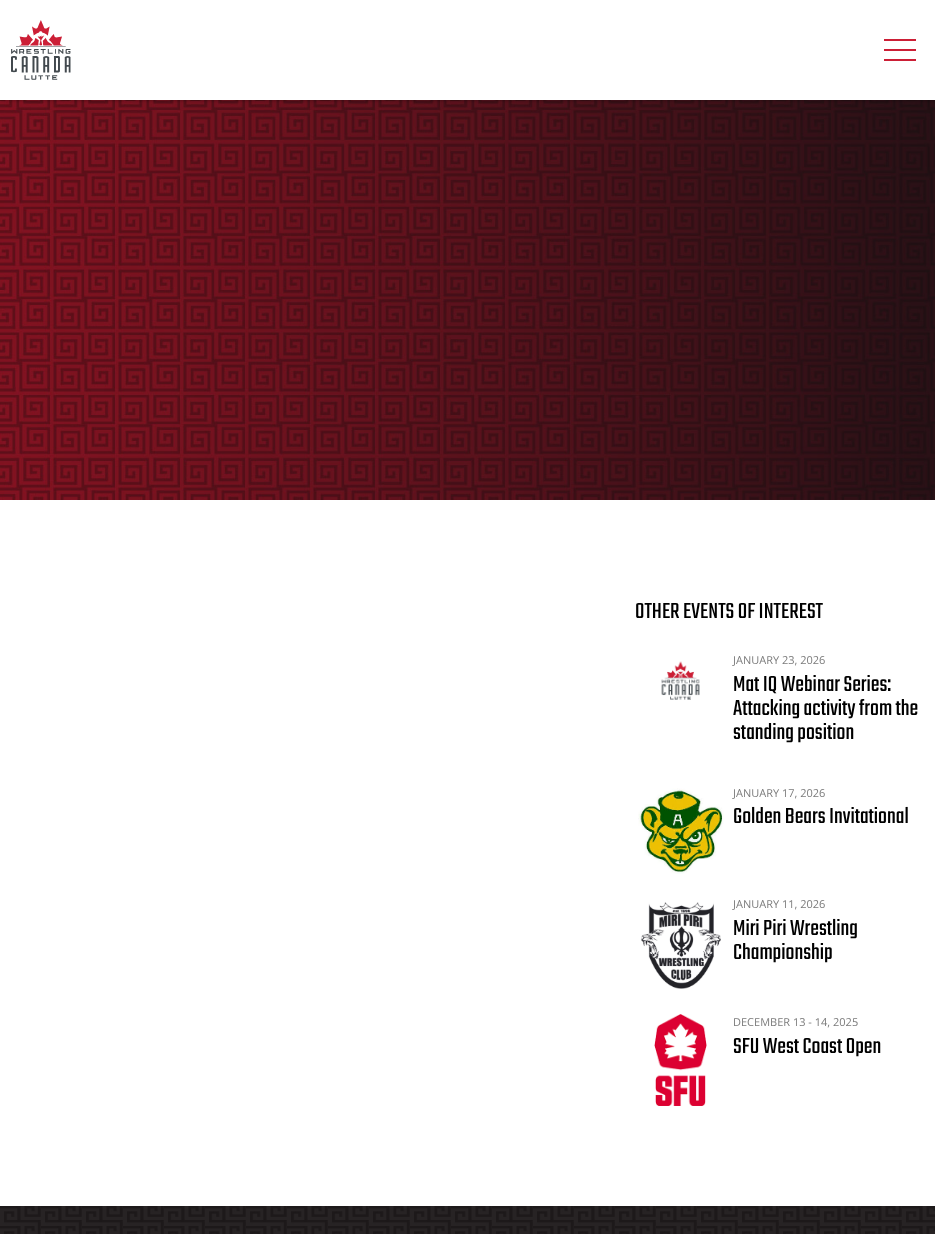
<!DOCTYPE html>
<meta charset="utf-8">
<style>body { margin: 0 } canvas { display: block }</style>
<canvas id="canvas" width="935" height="1234"></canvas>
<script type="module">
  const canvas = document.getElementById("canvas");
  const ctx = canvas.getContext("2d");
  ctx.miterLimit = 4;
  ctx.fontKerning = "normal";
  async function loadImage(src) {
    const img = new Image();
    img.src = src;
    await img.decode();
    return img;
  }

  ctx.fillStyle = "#ffffff";
  ctx.fillRect(0, 0, 935, 1234);
  ctx.drawImage(await loadImage("img2.png"), 0, 100, 935, 400);
  ctx.fillStyle = "rgba(0, 0, 0, 0.22)";
  ctx.filter = "blur(1px)";
  ctx.beginPath();
  ctx.rect(0, 1, 935, 100);
  ctx.fill();
  ctx.filter = "none";
  ctx.fillStyle = "#ffffff";
  ctx.fillRect(0, 0, 935, 100);
  ctx.drawImage(await loadImage("img1.png"), 11, 20, 60, 60);
  ctx.fillStyle = "#cc1f36";
  ctx.fillRect(884, 39, 32, 2);
  ctx.fillRect(884, 49, 32, 2);
  ctx.fillRect(884, 59, 32, 2);
  ctx.font = "24px Teko";
  ctx.fillStyle = "#000000";
  ctx.fillText("OTHER EVENTS OF INTEREST", 635, 618);
  ctx.drawImage(await loadImage("img3.png"), 661, 661, 39, 39);
  ctx.font = "11px Open Sans";
  ctx.fillStyle = "#7b7b7b";
  ctx.fillText("JANUARY 23, 2026", 733, 664);
  ctx.font = "24px Teko";
  ctx.fillStyle = "#000000";
  ctx.fillText("Mat IQ Webinar Series:", 733, 691);
  ctx.fillText("Attacking activity from the", 733, 715);
  ctx.fillText("standing position", 733, 739);
  ctx.drawImage(await loadImage("img4.png"), 638, 788, 86, 86);
  ctx.font = "11px Open Sans";
  ctx.fillStyle = "#7b7b7b";
  ctx.fillText("JANUARY 17, 2026", 733, 797);
  ctx.font = "24px Teko";
  ctx.fillStyle = "#000000";
  ctx.fillText("Golden Bears Invitational", 733, 823);
  ctx.drawImage(await loadImage("img5.png"), 640, 902, 81, 87);
  ctx.font = "11px Open Sans";
  ctx.fillStyle = "#7b7b7b";
  ctx.fillText("JANUARY 11, 2026", 733, 908);
  ctx.font = "24px Teko";
  ctx.fillStyle = "#000000";
  ctx.fillText("Miri Piri Wrestling", 733, 935);
  ctx.fillText("Championship", 733, 959);
  ctx.drawImage(await loadImage("img6.png"), 654, 1014, 53, 92);
  ctx.font = "11px Open Sans";
  ctx.fillStyle = "#7b7b7b";
  ctx.fillText("DECEMBER 13 - 14, 2025", 733, 1026);
  ctx.font = "24px Teko";
  ctx.fillStyle = "#000000";
  ctx.fillText("SFU West Coast Open", 733, 1053);
  ctx.drawImage(await loadImage("img7.png"), 0, 1206, 935, 28);
</script>
